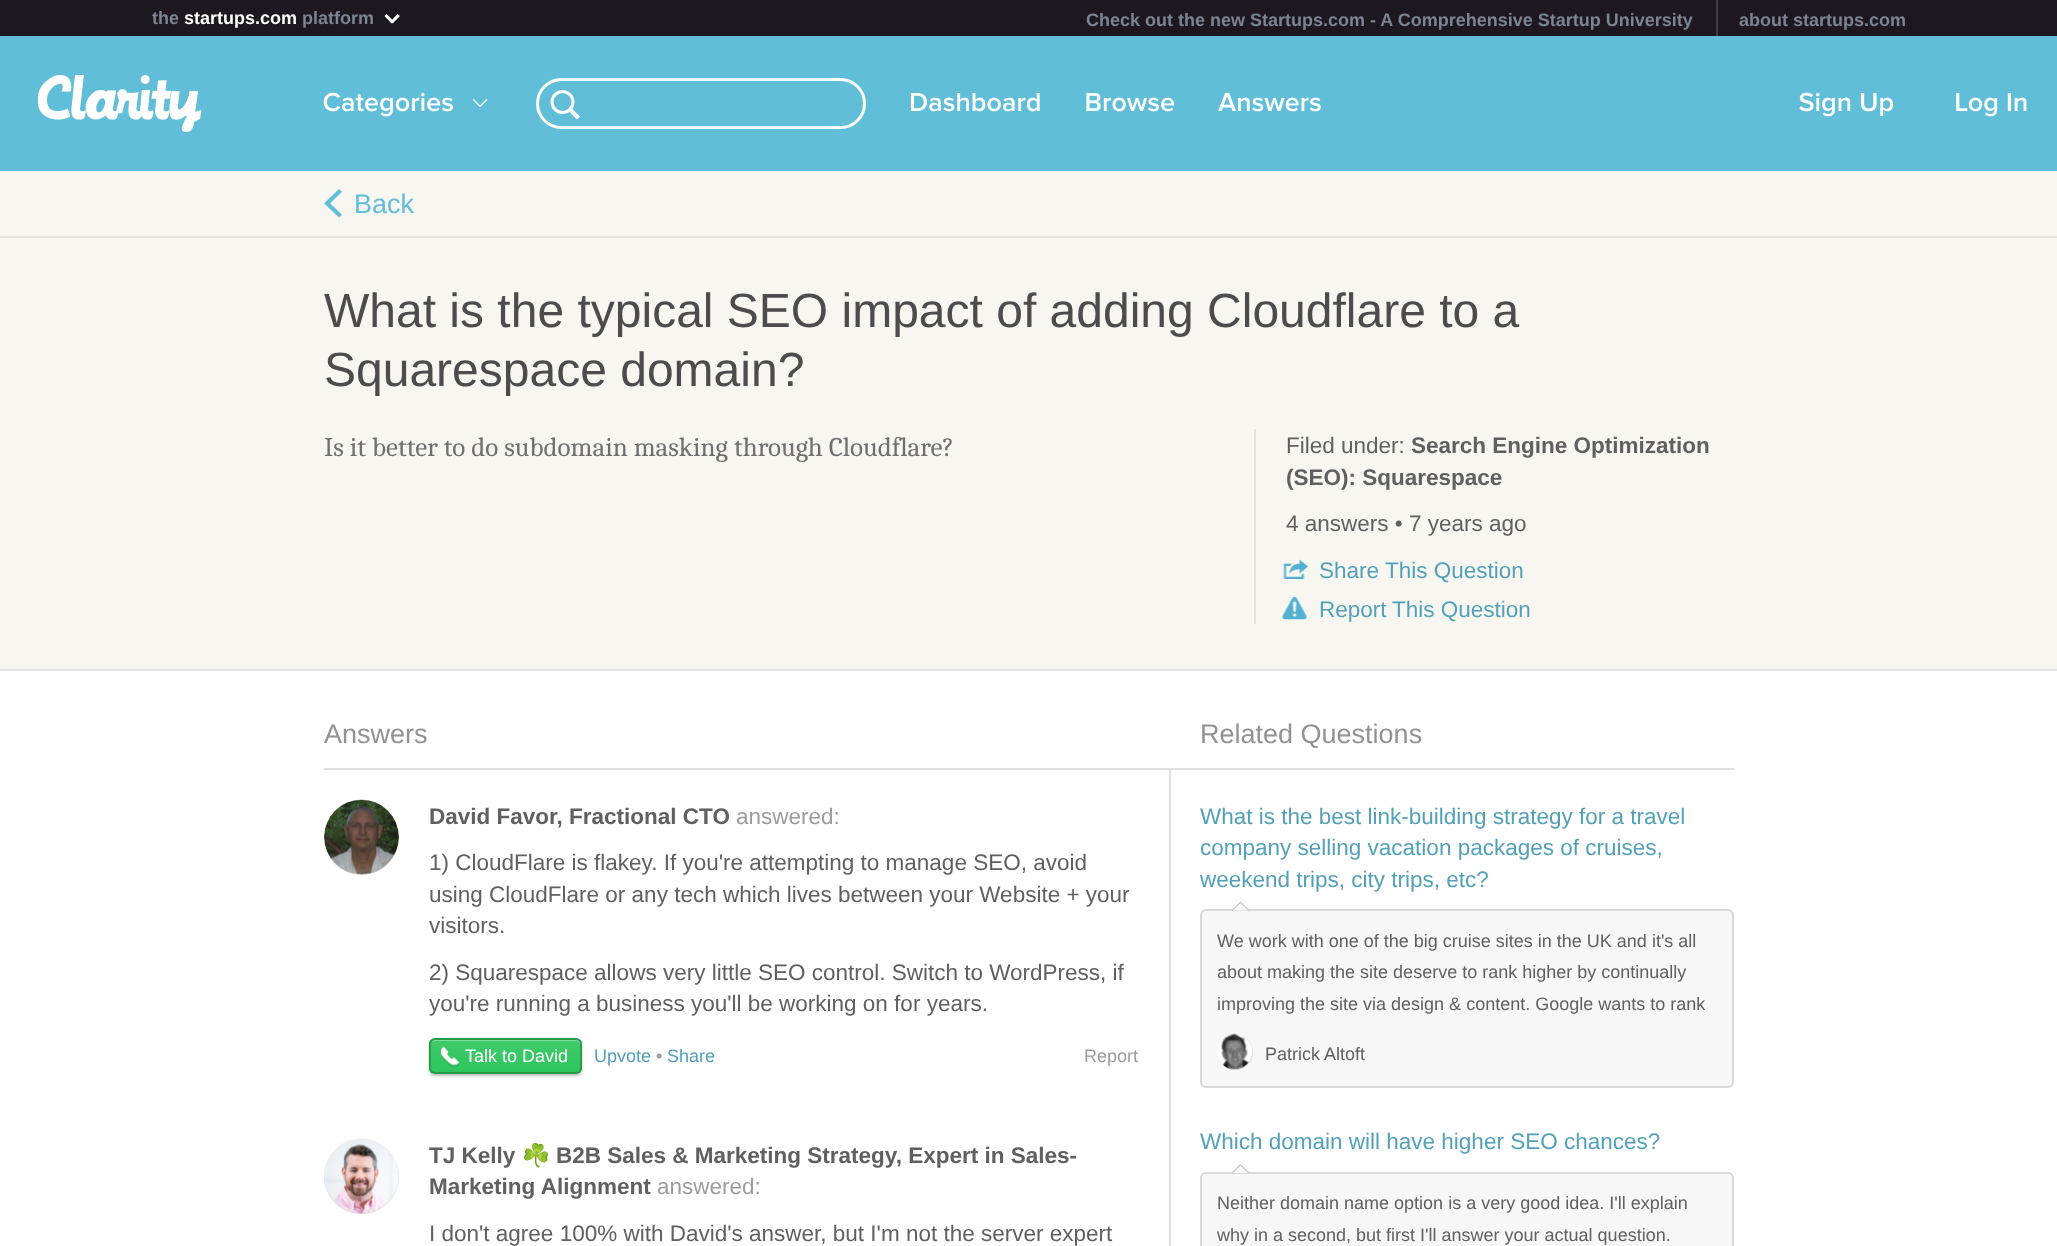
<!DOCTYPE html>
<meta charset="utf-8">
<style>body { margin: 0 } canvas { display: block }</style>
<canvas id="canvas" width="2057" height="1246"></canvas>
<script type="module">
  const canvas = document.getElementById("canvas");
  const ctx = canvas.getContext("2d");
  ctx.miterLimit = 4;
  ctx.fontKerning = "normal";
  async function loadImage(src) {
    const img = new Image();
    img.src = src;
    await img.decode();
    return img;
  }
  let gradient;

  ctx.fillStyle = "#ffffff";
  ctx.fillRect(0, 0, 2057, 1246);
  ctx.fillStyle = "#1d181f";
  ctx.fillRect(0, 0, 2057, 36);
  ctx.font = "bold 18px Liberation Sans";
  ctx.fillStyle = "#7b8490";
  ctx.fillText("the", 152, 24);
  ctx.fillStyle = "#ffffff";
  ctx.fillText("startups.com", 184, 24);
  ctx.fillStyle = "#7b8490";
  ctx.fillText("platform", 302, 24);
  ctx.fillStyle = "#ffffff";
  ctx.beginPath();
  ctx.moveTo(394, 21.5);
  ctx.lineTo(391.5, 23.5);
  ctx.lineTo(384.5, 16);
  ctx.lineTo(386.5, 14);
  ctx.closePath();
  ctx.fill();
  ctx.beginPath();
  ctx.moveTo(392.5, 23.5);
  ctx.lineTo(390.5, 21.5);
  ctx.lineTo(397.5, 14);
  ctx.lineTo(400, 16);
  ctx.closePath();
  ctx.fill();
  ctx.fillStyle = "#3e3d47";
  ctx.fillRect(1716, 0, 2, 36);
  ctx.fillStyle = "#7b8490";
  ctx.fillText("Check out the new Startups.com - A Comprehensive Startup University", 1086, 26);
  ctx.fillText("about startups.com", 1739, 26);
  ctx.fillStyle = "#61bed9";
  ctx.fillRect(0, 36, 2057, 135);
  ctx.drawImage(await loadImage("img1.png"), 38, 75, 164, 57);
  ctx.drawImage(await loadImage("img2.png"), 323, 92, 130, 25);
  ctx.drawImage(await loadImage("img3.png"), 472, 98, 16, 10);
  ctx.beginPath();
  ctx.roundRect(537.5, 79.5, 327, 48, 24);
  ctx.strokeStyle = "#ffffff";
  ctx.lineWidth = 3;
  ctx.stroke();
  ctx.beginPath();
  ctx.arc(562.5, 102, 10.5, 0, Math.PI * 2);
  ctx.stroke();
  ctx.fillStyle = "#ffffff";
  ctx.beginPath();
  ctx.moveTo(568.5, 111);
  ctx.lineTo(571.5, 108);
  ctx.lineTo(580, 116.5);
  ctx.lineTo(577, 119.5);
  ctx.closePath();
  ctx.fill("evenodd");
  ctx.drawImage(await loadImage("img4.png"), 910, 93, 130, 19);
  ctx.drawImage(await loadImage("img5.png"), 1086, 93, 89, 19);
  ctx.drawImage(await loadImage("img6.png"), 1218, 93, 103, 19);
  ctx.drawImage(await loadImage("img7.png"), 1799, 92, 95, 25);
  ctx.drawImage(await loadImage("img8.png"), 1956, 93, 71, 24);
  ctx.fillStyle = "#f7f6f1";
  ctx.fillRect(0, 171, 2057, 65);
  ctx.fillStyle = "#e4e2de";
  ctx.fillRect(0, 236, 2057, 2);
  ctx.drawImage(await loadImage("img9.png"), 324, 189, 18, 29);
  ctx.font = "27px Liberation Sans";
  ctx.fillStyle = "#61bed9";
  ctx.fillText("Back", 354, 213);
  ctx.fillStyle = "#f7f6f1";
  ctx.fillRect(0, 238, 2057, 431);
  ctx.fillStyle = "#e4e2de";
  ctx.fillRect(0, 669, 2057, 2);
  ctx.font = "48px Liberation Sans";
  ctx.fillStyle = "#4c4c4c";
  ctx.fillText("What is the typical SEO impact of adding Cloudflare to a", 324, 327);
  ctx.fillText("Squarespace domain?", 324, 386);
  ctx.font = "27px Caladea";
  ctx.fillStyle = "#6f6f6f";
  ctx.fillText("Is it better to do subdomain masking through Cloudflare?", 324, 456);
  ctx.fillStyle = "#e4e2de";
  ctx.fillRect(1254, 429, 2, 195);
  ctx.font = "22.5px Liberation Sans";
  ctx.fillStyle = "#606060";
  ctx.fillText("Filed under:", 1286, 453);
  ctx.font = "bold 22.5px Liberation Sans";
  ctx.fillText("Search Engine Optimization", 1411, 453);
  ctx.fillText("(SEO): Squarespace", 1286, 485);
  ctx.font = "22.5px Liberation Sans";
  ctx.fillText("4 answers • 7 years ago", 1286, 531);
  ctx.drawImage(await loadImage("img10.png"), 1283, 559, 26, 20);
  ctx.fillStyle = "#52a1b8";
  ctx.fillText("Share", 1319, 578);
  ctx.fillText("This Question", 1385, 578);
  ctx.drawImage(await loadImage("img11.png"), 1282, 597, 25, 23);
  ctx.fillText("Report", 1319, 617);
  ctx.fillText("This Question", 1392, 617);
  ctx.fillStyle = "#e0e0e0";
  ctx.fillRect(324, 768, 1410, 2);
  ctx.font = "27px Liberation Sans";
  ctx.fillStyle = "#929292";
  ctx.fillText("Answers", 324, 743);
  ctx.fillStyle = "#e0e0e0";
  ctx.fillRect(1169, 770, 2, 476);
  ctx.fillStyle = "#d9d9d9";
  ctx.beginPath();
  ctx.arc(361.5, 837.5, 37.5, 0, Math.PI * 2);
  ctx.fill();
  ctx.drawImage(await loadImage("img12.png"), 324, 799, 75, 76);
  ctx.font = "bold 22.5px Liberation Sans";
  ctx.fillStyle = "#606060";
  ctx.fillText("David Favor, Fractional CTO", 429, 824);
  ctx.font = "22.5px Liberation Sans";
  ctx.fillStyle = "#9c9c9c";
  ctx.fillText("answered:", 736, 824);
  ctx.fillStyle = "#606060";
  ctx.fillText("1) CloudFlare is flakey. If you're attempting to manage SEO, avoid", 429, 870);
  ctx.fillText("using CloudFlare or any tech which lives between your Website + your", 429, 902);
  ctx.fillText("visitors.", 429, 933);
  ctx.fillText("2) Squarespace allows very little SEO control. Switch to WordPress, if", 429, 980);
  ctx.fillText("you're running a business you'll be working on for years.", 429, 1011);
  ctx.fillStyle = "rgba(0, 0, 0, 0.25)";
  ctx.filter = "blur(1.5px)";
  ctx.beginPath();
  ctx.roundRect(429, 1040, 153, 36, 6);
  ctx.fill();
  ctx.filter = "none";
  ctx.save();
  ctx.beginPath();
  ctx.roundRect(429, 1038, 153, 36, 6);
  ctx.clip();
  gradient = ctx.createLinearGradient(506, 1040, 506, 1073);
  gradient.addColorStop(0, "#41ca6d");
  gradient.addColorStop(1, "#2cc55d");
  ctx.fillStyle = gradient;
  ctx.fillRect(429, 1040, 153, 33);
  ctx.restore();
  ctx.fillStyle = "rgba(255, 255, 255, 0.35)";
  ctx.beginPath();
  ctx.moveTo(435, 1041);
  ctx.lineTo(576, 1041);
  ctx.bezierCurveTo(582, 1041, 580, 1051, 580, 1054);
  ctx.lineTo(580, 1071);
  ctx.bezierCurveTo(581, 1070, 581, 1069, 581, 1068);
  ctx.lineTo(581, 1045);
  ctx.bezierCurveTo(581, 1042, 579, 1040, 576, 1040);
  ctx.lineTo(436, 1040);
  ctx.bezierCurveTo(434, 1040, 433, 1041, 432, 1042);
  ctx.closePath();
  ctx.fill();
  ctx.beginPath();
  ctx.roundRect(430, 1039, 151, 34, 5);
  ctx.strokeStyle = "#239d4a";
  ctx.lineWidth = 2;
  ctx.stroke();
  ctx.drawImage(await loadImage("img13.png"), 440, 1046, 19, 21);
  ctx.font = "18px Liberation Sans";
  ctx.fillStyle = "#ffffff";
  ctx.fillText("Talk to David", 465, 1062);
  ctx.fillStyle = "#52a1b8";
  ctx.fillText("Upvote", 594, 1062);
  ctx.fillStyle = "#9c9c9c";
  ctx.fillText("•", 656, 1062);
  ctx.fillStyle = "#52a1b8";
  ctx.fillText("Share", 667, 1062);
  ctx.fillStyle = "#9c9c9c";
  ctx.fillText("Report", 1084, 1062);
  ctx.fillStyle = "#d9d9d9";
  ctx.beginPath();
  ctx.arc(361.5, 1176.5, 37.5, 0, Math.PI * 2);
  ctx.fill();
  ctx.drawImage(await loadImage("img14.png"), 324, 1138, 75, 76);
  ctx.font = "bold 22.5px Liberation Sans";
  ctx.fillStyle = "#606060";
  ctx.fillText("TJ Kelly", 429, 1163);
  ctx.font = "bold 22.5px Noto Color Emoji";
  ctx.fillText("☘️", 522, 1163);
  ctx.font = "bold 22.5px Liberation Sans";
  ctx.fillText("B2B Sales & Marketing Strategy, Expert in Sales-", 556, 1163);
  ctx.fillText("Marketing Alignment", 429, 1194);
  ctx.font = "22.5px Liberation Sans";
  ctx.fillStyle = "#9c9c9c";
  ctx.fillText("answered:", 657, 1194);
  ctx.fillStyle = "#606060";
  ctx.fillText("I don't agree 100% with David's answer, but I'm not the server expert", 429, 1241);
  ctx.font = "27px Liberation Sans";
  ctx.fillStyle = "#929292";
  ctx.fillText("Related Questions", 1200, 743);
  ctx.font = "22.5px Liberation Sans";
  ctx.fillStyle = "#52a1b8";
  ctx.fillText("What is the best link-building strategy for a travel", 1200, 824);
  ctx.fillText("company selling vacation packages of cruises,", 1200, 855);
  ctx.fillText("weekend trips, city trips, etc?", 1200, 887);
  ctx.fillStyle = "#f7f7f7";
  ctx.beginPath();
  ctx.roundRect(1201, 910, 532, 177, 5);
  ctx.fill();
  ctx.strokeStyle = "#d9d9d9";
  ctx.stroke();
  ctx.fillStyle = "#c0c0c0";
  ctx.beginPath();
  ctx.moveTo(1249.5, 910.5);
  ctx.lineTo(1231.5, 910.5);
  ctx.lineTo(1240.5, 901.5);
  ctx.closePath();
  ctx.fill();
  ctx.fillStyle = "#f7f7f7";
  ctx.beginPath();
  ctx.moveTo(1248, 910.5);
  ctx.lineTo(1233, 910.5);
  ctx.lineTo(1240.5, 903);
  ctx.closePath();
  ctx.fill();
  ctx.font = "18px Liberation Sans";
  ctx.fillStyle = "#606060";
  ctx.fillText("We work with one of the big cruise sites in the UK and it's all", 1217, 947);
  ctx.fillText("about making the site deserve to rank higher by continually", 1217, 978);
  ctx.fillText("improving the site via design & content. Google wants to rank", 1217, 1010);
  ctx.fillStyle = "#d9d9d9";
  ctx.beginPath();
  ctx.arc(1235, 1052, 18, 0, Math.PI * 2);
  ctx.fill();
  ctx.drawImage(await loadImage("img15.png"), 1217, 1033, 36, 37);
  ctx.fillStyle = "#606060";
  ctx.fillText("Patrick Altoft", 1265, 1060);
  ctx.font = "22.5px Liberation Sans";
  ctx.fillStyle = "#52a1b8";
  ctx.fillText("Which domain will have higher SEO chances?", 1200, 1149);
  ctx.fillStyle = "#f7f7f7";
  ctx.beginPath();
  ctx.moveTo(1206, 1172);
  ctx.lineTo(1728, 1172);
  ctx.bezierCurveTo(1731.5, 1172, 1734, 1174.5, 1734, 1178);
  ctx.lineTo(1734, 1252);
  ctx.lineTo(1200, 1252);
  ctx.lineTo(1200, 1178);
  ctx.bezierCurveTo(1200, 1174.5, 1202.5, 1172, 1206, 1172);
  ctx.closePath();
  ctx.fill();
  ctx.beginPath();
  ctx.roundRect(1201, 1173, 532, 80, 5);
  ctx.stroke();
  ctx.fillStyle = "#c0c0c0";
  ctx.beginPath();
  ctx.moveTo(1249.5, 1173);
  ctx.lineTo(1231.5, 1173);
  ctx.lineTo(1240.5, 1164);
  ctx.closePath();
  ctx.fill();
  ctx.fillStyle = "#f7f7f7";
  ctx.beginPath();
  ctx.moveTo(1248, 1173);
  ctx.lineTo(1233, 1173);
  ctx.lineTo(1240.5, 1165.5);
  ctx.closePath();
  ctx.fill();
  ctx.font = "18px Liberation Sans";
  ctx.fillStyle = "#606060";
  ctx.fillText("Neither domain name option is a very good idea. I'll explain", 1217, 1209);
  ctx.fillText("why in a second, but first I'll answer your actual question.", 1217, 1241);
</script>
